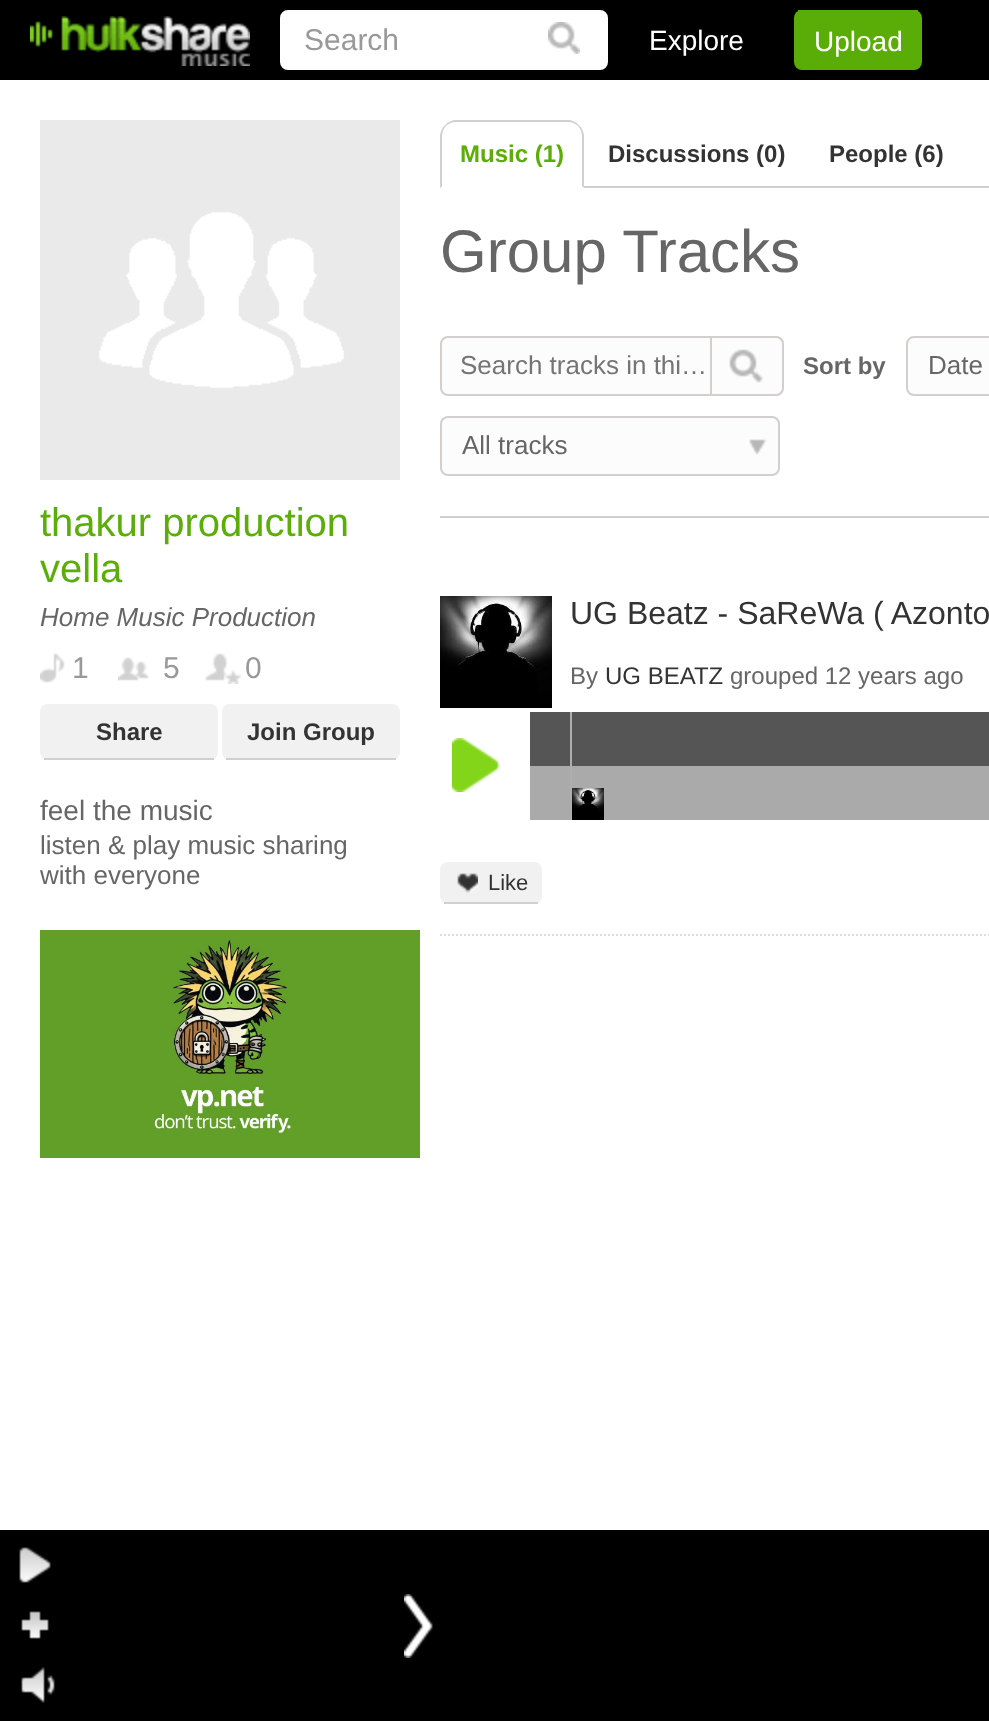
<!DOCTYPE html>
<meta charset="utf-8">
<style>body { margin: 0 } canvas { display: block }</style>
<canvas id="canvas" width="989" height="1721"></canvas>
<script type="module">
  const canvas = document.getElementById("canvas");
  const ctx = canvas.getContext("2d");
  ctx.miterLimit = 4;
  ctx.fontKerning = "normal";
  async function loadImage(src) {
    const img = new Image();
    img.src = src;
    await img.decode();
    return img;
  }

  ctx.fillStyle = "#ffffff";
  ctx.fillRect(0, 0, 989, 1721);
  ctx.fillStyle = "#000000";
  ctx.fillRect(0, 0, 989, 80);
  ctx.drawImage(await loadImage("img1.png"), 30, 16, 220, 50);
  ctx.fillStyle = "#ffffff";
  ctx.beginPath();
  ctx.roundRect(282, 12, 324, 56, 6);
  ctx.fill();
  ctx.strokeStyle = "#ffffff";
  ctx.lineWidth = 4;
  ctx.stroke();
  ctx.font = "30px Liberation Sans";
  ctx.fillStyle = "#999999";
  ctx.fillText("Search", 304, 50);
  ctx.drawImage(await loadImage("img2.png"), 548, 22, 32, 32);
  ctx.font = "28px Liberation Sans";
  ctx.fillStyle = "#ffffff";
  ctx.fillText("Explore", 649, 50);
  ctx.fillStyle = "#5aad07";
  ctx.beginPath();
  ctx.roundRect(794, 10, 128, 60, 8);
  ctx.fill();
  ctx.fillRect(798, 10, 120, 1);
  ctx.fillStyle = "#ffffff";
  ctx.fillText("Upload", 814, 51);
  ctx.drawImage(await loadImage("img3.png"), 40, 120, 360, 360);
  ctx.font = "40px Liberation Sans";
  ctx.fillStyle = "#5aae07";
  ctx.fillText("thakur production", 40, 536);
  ctx.fillText("vella", 40, 582);
  ctx.font = "italic 26px Liberation Sans";
  ctx.fillStyle = "#666666";
  ctx.fillText("Home Music Production", 40, 626);
  ctx.drawImage(await loadImage("img4.png"), 40, 653, 25, 30);
  ctx.font = "30px Liberation Sans";
  ctx.fillStyle = "#999999";
  ctx.fillText("1", 72, 678);
  ctx.drawImage(await loadImage("img5.png"), 118, 657, 31, 24);
  ctx.fillText("5", 163, 678);
  ctx.drawImage(await loadImage("img6.png"), 205, 653, 37, 31);
  ctx.fillText("0", 245, 678);
  ctx.fillStyle = "#f1f1f1";
  ctx.beginPath();
  ctx.roundRect(40, 704, 178, 56, 8);
  ctx.fill();
  ctx.fillStyle = "#d0d0d0";
  ctx.fillRect(44, 758, 170, 2);
  ctx.font = "bold 24px Liberation Sans";
  ctx.fillStyle = "#333333";
  ctx.fillText("Share", 96, 740);
  ctx.fillStyle = "#f1f1f1";
  ctx.beginPath();
  ctx.roundRect(222, 704, 178, 56, 8);
  ctx.fill();
  ctx.fillStyle = "#d0d0d0";
  ctx.fillRect(226, 758, 170, 2);
  ctx.fillStyle = "#333333";
  ctx.fillText("Join Group", 247, 740);
  ctx.font = "28px Liberation Sans";
  ctx.fillStyle = "#666666";
  ctx.fillText("feel the music", 40, 820);
  ctx.font = "26px Liberation Sans";
  ctx.fillText("listen & play music sharing", 40, 854);
  ctx.fillText("with everyone", 40, 884);
  ctx.drawImage(await loadImage("img7.png"), 40, 930, 380, 228);
  ctx.fillStyle = "#d0d0d0";
  ctx.fillRect(440, 186, 549, 2);
  ctx.beginPath();
  ctx.moveTo(456, 120);
  ctx.bezierCurveTo(452, 120, 448, 122, 445, 125);
  ctx.lineTo(446, 126);
  ctx.bezierCurveTo(448, 124, 452, 122, 456, 122);
  ctx.lineTo(568, 122);
  ctx.bezierCurveTo(572, 122, 576, 124, 578, 126);
  ctx.lineTo(579, 125);
  ctx.bezierCurveTo(576, 122, 572, 120, 568, 120);
  ctx.closePath();
  ctx.fill();
  ctx.beginPath();
  ctx.moveTo(584, 188);
  ctx.lineTo(584, 136);
  ctx.bezierCurveTo(584, 132, 582, 128, 579, 125);
  ctx.lineTo(578, 126);
  ctx.bezierCurveTo(580, 128, 582, 132, 582, 136);
  ctx.lineTo(582, 186);
  ctx.closePath();
  ctx.fill();
  ctx.fillStyle = "#ffffff";
  ctx.beginPath();
  ctx.moveTo(584, 188);
  ctx.lineTo(582, 186);
  ctx.lineTo(442, 186);
  ctx.lineTo(440, 188);
  ctx.closePath();
  ctx.fill();
  ctx.fillStyle = "#d0d0d0";
  ctx.beginPath();
  ctx.moveTo(440, 188);
  ctx.lineTo(442, 186);
  ctx.lineTo(442, 136);
  ctx.bezierCurveTo(442, 132, 444, 128, 446, 126);
  ctx.lineTo(445, 125);
  ctx.bezierCurveTo(442, 128, 440, 132, 440, 136);
  ctx.closePath();
  ctx.fill();
  ctx.font = "bold 24px Liberation Sans";
  ctx.fillStyle = "#5aae07";
  ctx.fillText("Music (1)", 460, 162);
  ctx.fillStyle = "#333333";
  ctx.fillText("Discussions (0)", 608, 162);
  ctx.fillText("People (6)", 829, 162);
  ctx.font = "60px Liberation Sans";
  ctx.fillStyle = "#666666";
  ctx.fillText("Group Tracks", 440, 272);
  ctx.fillStyle = "#d0d0d0";
  ctx.fillRect(440, 516, 549, 2);
  ctx.fillStyle = "#fcfcfc";
  ctx.beginPath();
  ctx.roundRect(441, 337, 342, 58, 7);
  ctx.fill();
  ctx.strokeStyle = "#d2cfcd";
  ctx.lineWidth = 2;
  ctx.stroke();
  ctx.font = "26px Liberation Sans";
  ctx.fillStyle = "#757575";
  ctx.fillText("Search tracks in thi…", 460, 374);
  ctx.fillStyle = "#fcfcfc";
  ctx.beginPath();
  ctx.roundRect(710, 336, 74, 60, [0, 8, 8, 0]);
  ctx.fill();
  ctx.drawImage(await loadImage("img8.png"), 729, 349, 34, 34);
  ctx.beginPath();
  ctx.roundRect(711, 337, 72, 58, [0, 7, 7, 0]);
  ctx.stroke();
  ctx.font = "bold 24px Liberation Sans";
  ctx.fillStyle = "#666666";
  ctx.fillText("Sort by", 803, 374);
  ctx.fillStyle = "#fcfcfc";
  ctx.beginPath();
  ctx.roundRect(907, 337, 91, 58, 7);
  ctx.fill();
  ctx.stroke();
  ctx.font = "26px Liberation Sans";
  ctx.fillStyle = "#666666";
  ctx.fillText("Date", 928, 374);
  ctx.fillStyle = "#fcfcfc";
  ctx.beginPath();
  ctx.roundRect(440, 416, 340, 60, 8);
  ctx.fill();
  ctx.drawImage(await loadImage("img9.png"), 749, 439, 18, 16);
  ctx.beginPath();
  ctx.roundRect(441, 417, 338, 58, 7);
  ctx.stroke();
  ctx.fillStyle = "#666666";
  ctx.fillText("All tracks", 462, 454);
  ctx.beginPath();
  ctx.moveTo(440, 935);
  ctx.lineTo(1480, 935);
  ctx.strokeStyle = "#dcdcdc";
  ctx.setLineDash([2, 2]);
  ctx.stroke();
  ctx.drawImage(await loadImage("img10.png"), 440, 596, 112, 112);
  ctx.font = "32px Liberation Sans";
  ctx.fillStyle = "#333333";
  ctx.fillText("UG Beatz - SaReWa ( Azonto", 570, 624);
  ctx.font = "24px Liberation Sans";
  ctx.fillStyle = "#666666";
  ctx.fillText("By", 570, 684);
  ctx.fillStyle = "#333333";
  ctx.fillText("UG BEATZ", 605, 684);
  ctx.fillStyle = "#666666";
  ctx.fillText("grouped 12 years ago", 730, 684);
  ctx.drawImage(await loadImage("img11.png"), 452, 738, 48, 54);
  ctx.fillStyle = "#555555";
  ctx.fillRect(530, 712, 459, 54);
  ctx.fillStyle = "#aaaaaa";
  ctx.fillRect(530, 766, 459, 54);
  ctx.fillStyle = "#aeaeae";
  ctx.fillRect(570, 712, 2, 108);
  ctx.drawImage(await loadImage("img12.png"), 572, 788, 32, 32);
  ctx.fillStyle = "#f1f1f1";
  ctx.beginPath();
  ctx.roundRect(440, 862, 102, 42, 8);
  ctx.fill();
  ctx.fillStyle = "#d0d0d0";
  ctx.fillRect(444, 902, 94, 2);
  ctx.drawImage(await loadImage("img13.png"), 457, 873, 21, 20);
  ctx.font = "22px Liberation Sans";
  ctx.fillStyle = "#333333";
  ctx.fillText("Like", 488, 890);
  ctx.fillStyle = "#000000";
  ctx.fillRect(0, 1530, 989, 191);
  ctx.drawImage(await loadImage("img14.png"), 19, 1547, 32, 36);
  ctx.drawImage(await loadImage("img15.png"), 21, 1611, 28, 28);
  ctx.drawImage(await loadImage("img16.png"), 21, 1667, 34, 36);
  ctx.drawImage(await loadImage("img17.png"), 404, 1594, 29, 64);
</script>
